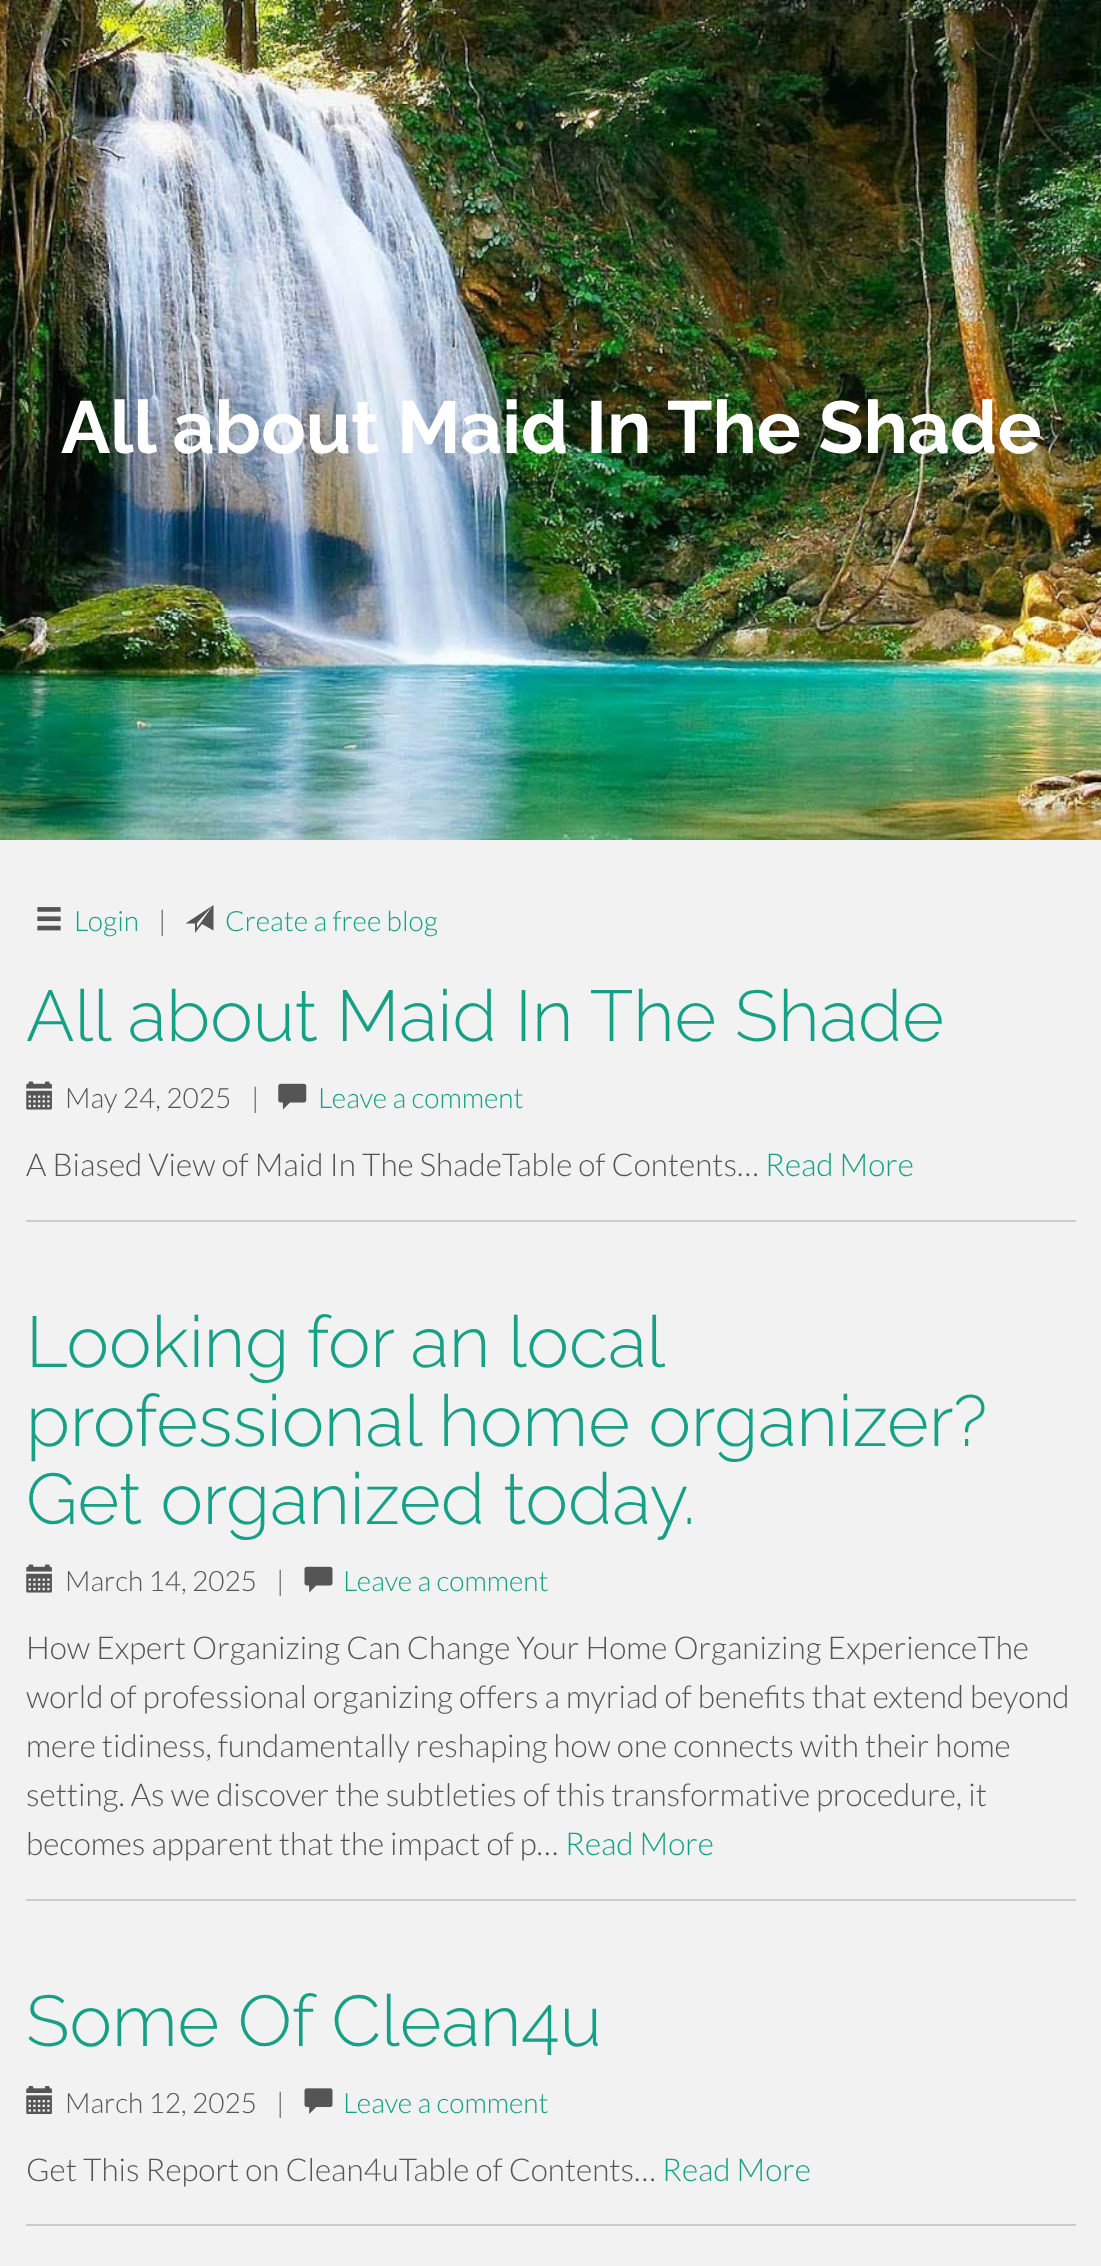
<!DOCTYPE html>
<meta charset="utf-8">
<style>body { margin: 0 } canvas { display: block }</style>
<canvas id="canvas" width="1101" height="2266"></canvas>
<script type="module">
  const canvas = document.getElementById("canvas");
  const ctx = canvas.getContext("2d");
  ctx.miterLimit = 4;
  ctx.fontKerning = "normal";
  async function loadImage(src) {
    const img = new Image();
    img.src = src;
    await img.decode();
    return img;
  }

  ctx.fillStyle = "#f2f2f2";
  ctx.fillRect(0, 0, 1101, 2266);
  ctx.drawImage(await loadImage("img1.png"), 0, 0, 1101, 840);
  ctx.font = "bold 73.5px Raleway";
  ctx.fillStyle = "#ffffff";
  ctx.fillText("All about Maid In The Shade", 61, 453);
  ctx.drawImage(await loadImage("img2.png"), 37, 907, 24, 24);
  ctx.font = "300 28px Lato";
  ctx.fillStyle = "#16a085";
  ctx.fillText("Login", 74, 931);
  ctx.fillStyle = "#555555";
  ctx.fillText("|", 158, 931);
  ctx.beginPath();
  ctx.moveTo(213.5, 930.5);
  ctx.lineTo(202, 924);
  ctx.lineTo(195, 933);
  ctx.lineTo(195, 923.5);
  ctx.lineTo(185.5, 923.5);
  ctx.lineTo(213.5, 905);
  ctx.closePath();
  ctx.moveTo(197, 923);
  ctx.lineTo(197, 928);
  ctx.lineTo(212.5, 906);
  ctx.closePath();
  ctx.fill();
  ctx.fillStyle = "#16a085";
  ctx.fillText("Create a free blog", 225, 931);
  ctx.font = "300 71.75px Raleway";
  ctx.fillText("All about Maid In The Shade", 26, 1041);
  ctx.drawImage(await loadImage("img3.png"), 26, 1081, 26, 29);
  ctx.font = "300 28px Lato";
  ctx.fillStyle = "#555555";
  ctx.fillText("May 24, 2025", 65, 1108);
  ctx.fillText("|", 251, 1108);
  ctx.drawImage(await loadImage("img4.png"), 278, 1083, 29, 27);
  ctx.fillStyle = "#16a085";
  ctx.fillText("Leave a comment", 318, 1108);
  ctx.font = "300 31.5px Lato";
  ctx.fillStyle = "#555555";
  ctx.fillText("A Biased View of Maid In The ShadeTable of Contents…", 26, 1176);
  ctx.fillStyle = "#16a085";
  ctx.fillText("Read More", 765, 1176);
  ctx.fillStyle = "#cccccc";
  ctx.fillRect(26, 1220, 1050, 2);
  ctx.wordSpacing = "-1px";
  ctx.font = "300 71.75px Raleway";
  ctx.fillStyle = "#16a085";
  ctx.fillText("Looking for an local", 26, 1367);
  ctx.wordSpacing = "0px";
  ctx.fillText("professional home organizer?", 26, 1446);
  ctx.fillText("Get organized today.", 26, 1524);
  ctx.drawImage(await loadImage("img3.png"), 26, 1564, 26, 29);
  ctx.font = "300 28px Lato";
  ctx.fillStyle = "#555555";
  ctx.fillText("March 14, 2025", 65, 1591);
  ctx.fillText("|", 276, 1591);
  ctx.drawImage(await loadImage("img5.png"), 304, 1566, 29, 27);
  ctx.fillStyle = "#16a085";
  ctx.fillText("Leave a comment", 343, 1591);
  ctx.font = "300 31.5px Lato";
  ctx.fillStyle = "#555555";
  ctx.fillText("How Expert Organizing Can Change Your Home Organizing ExperienceThe", 26, 1659);
  ctx.fillText("world of professional organizing offers a myriad of benefits that extend beyond", 26, 1708);
  ctx.fillText("mere tidiness, fundamentally reshaping how one connects with their home", 26, 1757);
  ctx.fillText("setting. As we discover the subtleties of this transformative procedure, it", 26, 1806);
  ctx.fillText("becomes apparent that the impact of p…", 26, 1855);
  ctx.fillStyle = "#16a085";
  ctx.fillText("Read More", 565, 1855);
  ctx.fillStyle = "#cccccc";
  ctx.fillRect(26, 1899, 1050, 2);
  ctx.font = "300 71.75px Raleway";
  ctx.fillStyle = "#16a085";
  ctx.fillText("Some Of Clean4u", 26, 2046);
  ctx.drawImage(await loadImage("img6.png"), 26, 2086, 26, 28);
  ctx.font = "300 28px Lato";
  ctx.fillStyle = "#555555";
  ctx.fillText("March 12, 2025", 65, 2113);
  ctx.fillText("|", 276, 2113);
  ctx.drawImage(await loadImage("img7.png"), 304, 2088, 29, 26);
  ctx.fillStyle = "#16a085";
  ctx.fillText("Leave a comment", 343, 2113);
  ctx.font = "300 31.5px Lato";
  ctx.fillStyle = "#555555";
  ctx.fillText("Get This Report on Clean4uTable of Contents…", 26, 2181);
  ctx.fillStyle = "#16a085";
  ctx.fillText("Read More", 662, 2181);
  ctx.fillStyle = "#cccccc";
  ctx.fillRect(26, 2224, 1050, 2);
</script>
